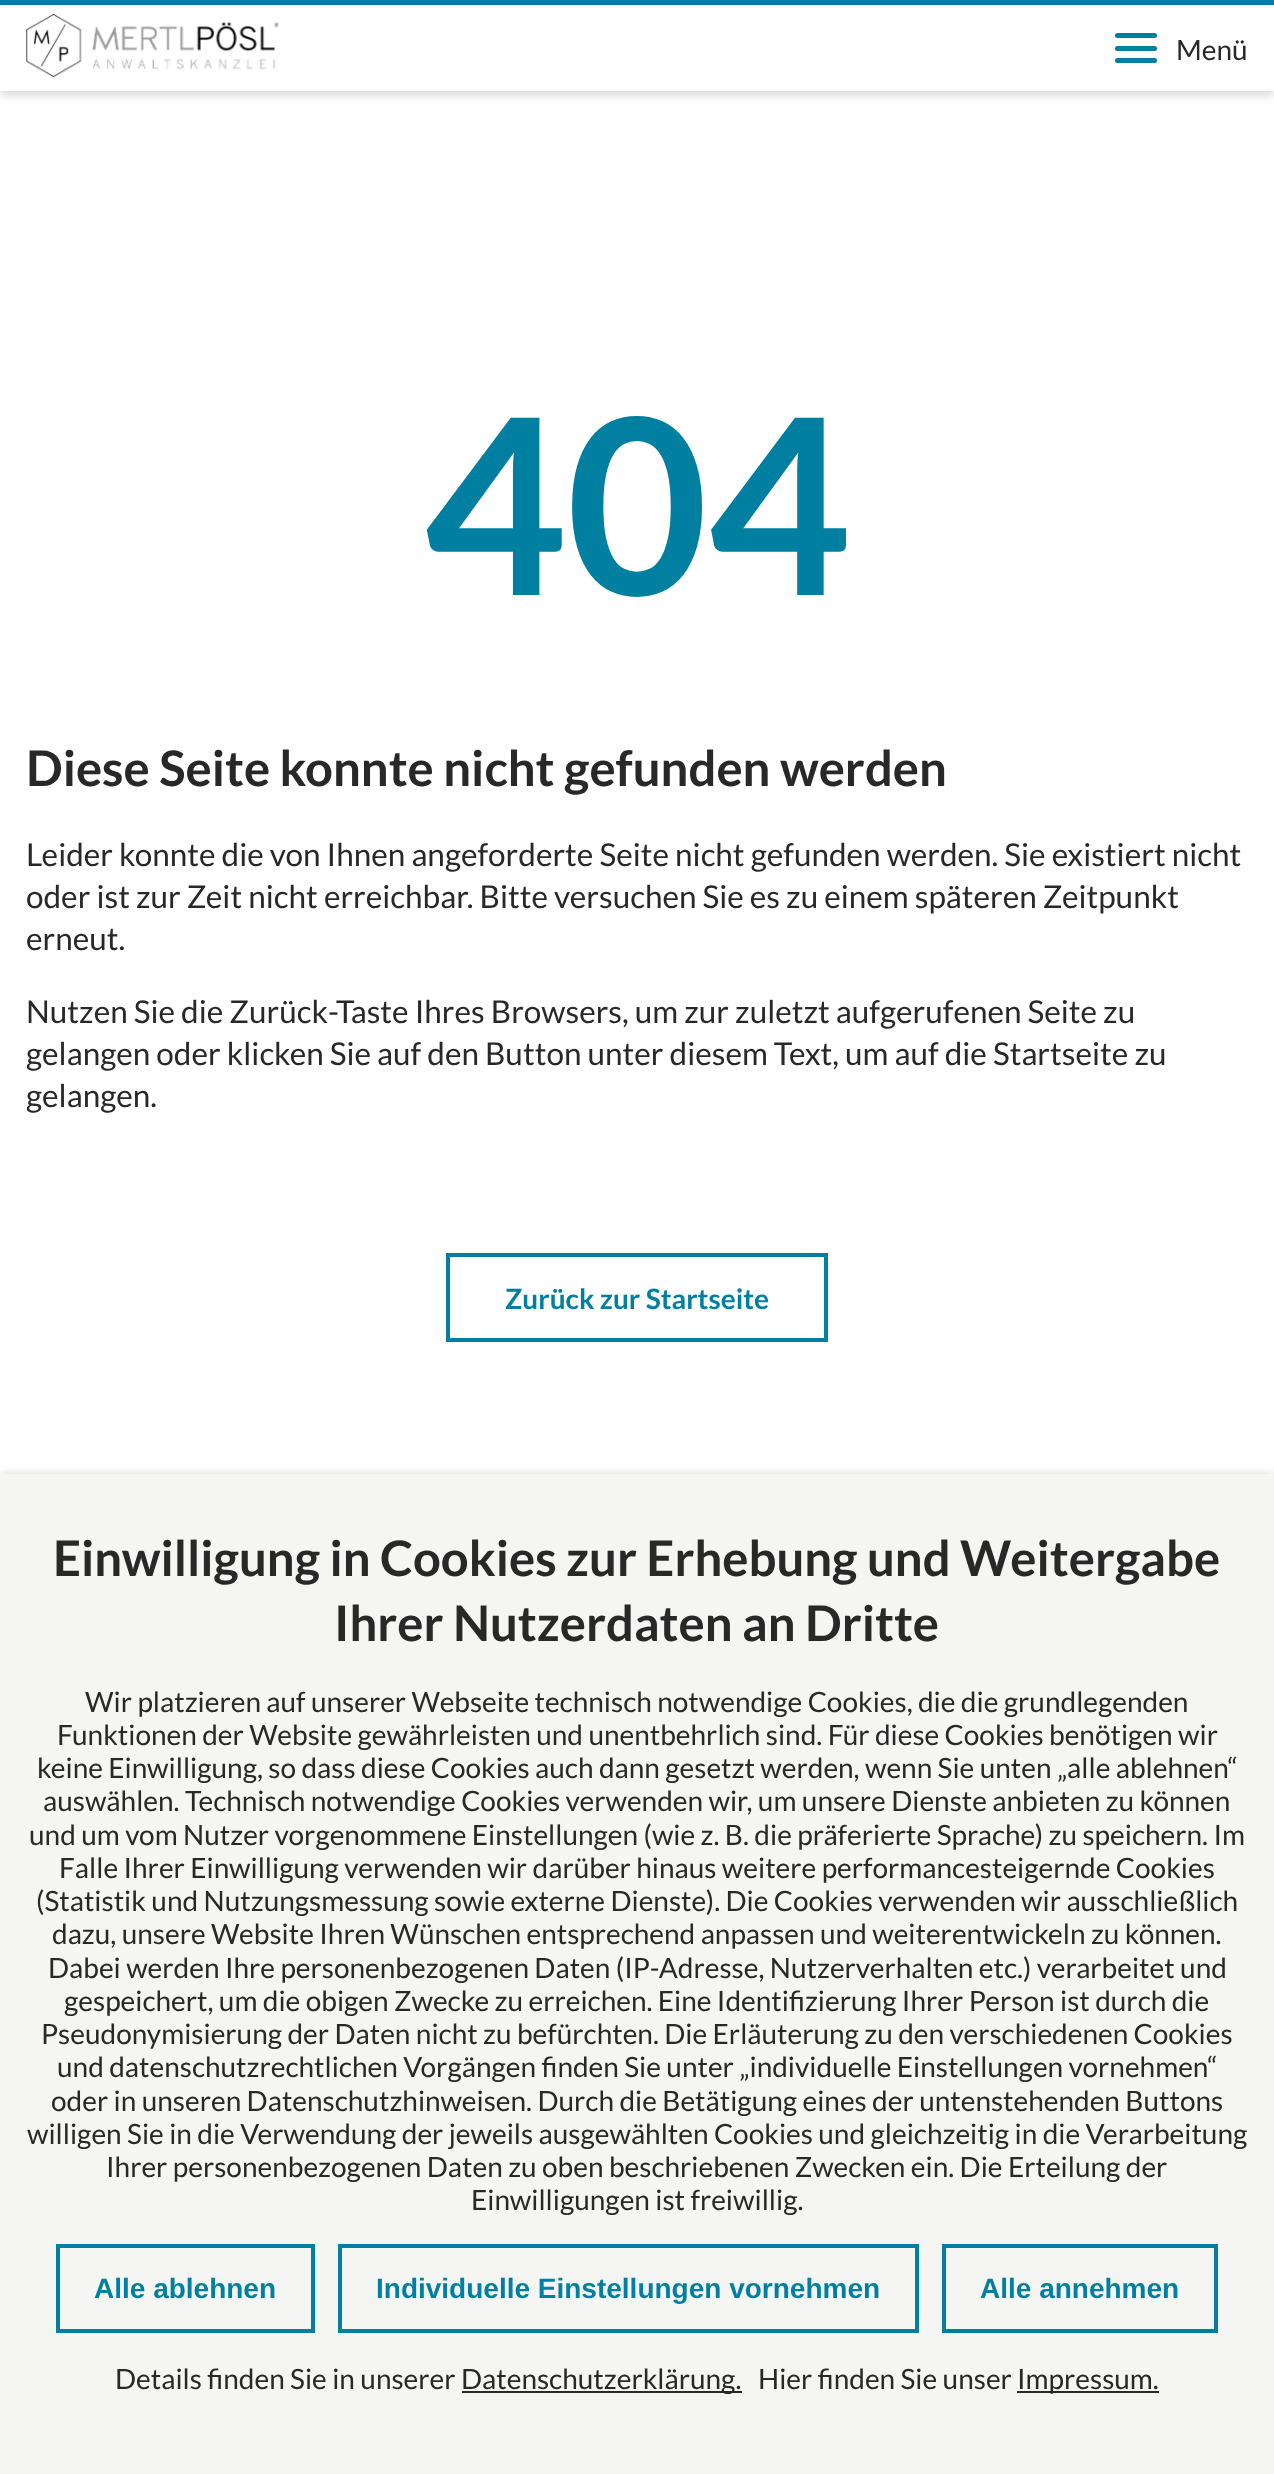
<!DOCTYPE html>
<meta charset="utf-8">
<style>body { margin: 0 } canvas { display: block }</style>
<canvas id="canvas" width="1274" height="2474"></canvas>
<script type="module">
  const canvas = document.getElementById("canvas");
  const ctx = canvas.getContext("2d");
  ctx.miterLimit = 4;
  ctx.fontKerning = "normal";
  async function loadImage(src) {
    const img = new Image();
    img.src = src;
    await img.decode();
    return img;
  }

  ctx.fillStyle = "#ffffff";
  ctx.fillRect(0, 0, 1274, 2474);
  ctx.fillStyle = "#007fa1";
  ctx.fillRect(0, 0, 1274, 5);
  ctx.fillStyle = "rgba(0, 0, 0, 0.16)";
  ctx.filter = "blur(5px)";
  ctx.beginPath();
  ctx.rect(0, 9, 1274, 86);
  ctx.fill();
  ctx.filter = "none";
  ctx.fillStyle = "#ffffff";
  ctx.fillRect(0, 5, 1274, 86);
  ctx.drawImage(await loadImage("img1.png"), 26, 14, 253, 63);
  ctx.fillStyle = "#007fa1";
  ctx.beginPath();
  ctx.roundRect(1115, 33, 42, 5, 2.5);
  ctx.fill();
  ctx.beginPath();
  ctx.roundRect(1115, 46, 42, 5, 2.5);
  ctx.fill();
  ctx.font = "28px Lato";
  ctx.fillStyle = "#282828";
  ctx.fillText("Menü", 1176, 60);
  ctx.fillStyle = "#007fa1";
  ctx.beginPath();
  ctx.roundRect(1115, 58, 42, 5, 2.5);
  ctx.fill();
  ctx.font = "bold 245px Lato";
  ctx.fillText("404", 424, 595);
  ctx.font = "bold 49px Lato";
  ctx.fillStyle = "#282828";
  ctx.fillText("Diese Seite konnte nicht gefunden werden", 26, 786);
  ctx.font = "31.5px Lato";
  ctx.fillText("Leider konnte die von Ihnen angeforderte Seite nicht gefunden werden. Sie existiert nicht", 26, 866);
  ctx.fillText("oder ist zur Zeit nicht erreichbar. Bitte versuchen Sie es zu einem späteren Zeitpunkt", 26, 908);
  ctx.fillText("erneut.", 26, 950);
  ctx.fillText("Nutzen Sie die Zurück-Taste Ihres Browsers, um zur zuletzt aufgerufenen Seite zu", 26, 1023);
  ctx.fillText("gelangen oder klicken Sie auf den Button unter diesem Text, um auf die Startseite zu", 26, 1065);
  ctx.fillText("gelangen.", 26, 1107);
  ctx.strokeStyle = "#007fa1";
  ctx.lineWidth = 4;
  ctx.strokeRect(448, 1255, 378, 85);
  ctx.font = "bold 28px Lato";
  ctx.fillStyle = "#007fa1";
  ctx.fillText("Zurück zur Startseite", 505, 1309);
  ctx.fillStyle = "rgba(0, 0, 0, 0.16)";
  ctx.filter = "blur(5px)";
  ctx.beginPath();
  ctx.rect(0, 1474, 1274, 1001);
  ctx.fill();
  ctx.filter = "none";
  ctx.fillStyle = "#f5f5f4";
  ctx.fillRect(0, 1474, 1274, 1000);
  ctx.font = "bold 49px Lato";
  ctx.fillStyle = "#282828";
  ctx.fillText("Einwilligung in Cookies zur Erhebung und Weitergabe", 53, 1576);
  ctx.fillText("Ihrer Nutzerdaten an Dritte", 334, 1641);
  ctx.font = "28px Lato";
  ctx.fillText("Wir platzieren auf unserer Webseite technisch notwendige Cookies, die die grundlegenden", 85, 1712);
  ctx.fillText("Funktionen der Website gewährleisten und unentbehrlich sind. Für diese Cookies benötigen wir", 57, 1745);
  ctx.fillText("keine Einwilligung, so dass diese Cookies auch dann gesetzt werden, wenn Sie unten „alle ablehnen“", 37, 1778);
  ctx.fillText("auswählen. Technisch notwendige Cookies verwenden wir, um unsere Dienste anbieten zu können", 43, 1811);
  ctx.fillText("und um vom Nutzer vorgenommene Einstellungen (wie z. B. die präferierte Sprache) zu speichern. Im", 29, 1845);
  ctx.fillText("Falle Ihrer Einwilligung verwenden wir darüber hinaus weitere performancesteigernde Cookies", 59, 1878);
  ctx.fillText("(Statistik und Nutzungsmessung sowie externe Dienste). Die Cookies verwenden wir ausschließlich", 36, 1911);
  ctx.fillText("dazu, unsere Website Ihren Wünschen entsprechend anpassen und weiterentwickeln zu können.", 52, 1944);
  ctx.fillText("Dabei werden Ihre personenbezogenen Daten (IP-Adresse, Nutzerverhalten etc.) verarbeitet und", 48, 1978);
  ctx.fillText("gespeichert, um die obigen Zwecke zu erreichen. Eine Identifizierung Ihrer Person ist durch die", 64, 2011);
  ctx.fillText("Pseudonymisierung der Daten nicht zu befürchten. Die Erläuterung zu den verschiedenen Cookies", 41, 2044);
  ctx.fillText("und datenschutzrechtlichen Vorgängen finden Sie unter „individuelle Einstellungen vornehmen“", 57, 2077);
  ctx.fillText("oder in unseren Datenschutzhinweisen. Durch die Betätigung eines der untenstehenden Buttons", 51, 2111);
  ctx.fillText("willigen Sie in die Verwendung der jeweils ausgewählten Cookies und gleichzeitig in die Verarbeitung", 27, 2144);
  ctx.fillText("Ihrer personenbezogenen Daten zu oben beschriebenen Zwecken ein. Die Erteilung der", 106, 2177);
  ctx.fillText("Einwilligungen ist freiwillig.", 471, 2210);
  ctx.strokeRect(58, 2246, 255, 85);
  ctx.font = "bold 28px Liberation Sans";
  ctx.fillStyle = "#007fa1";
  ctx.fillText("Alle ablehnen", 94, 2298);
  ctx.strokeRect(340, 2246, 577, 85);
  ctx.fillText("Individuelle Einstellungen vornehmen", 376, 2298);
  ctx.strokeRect(944, 2246, 272, 85);
  ctx.fillText("Alle annehmen", 980, 2298);
  ctx.font = "28px Lato";
  ctx.fillStyle = "#282828";
  ctx.fillText("Details finden Sie in unserer", 115, 2389);
  ctx.fillRect(462, 2391, 280, 2);
  ctx.fillText("Datenschutzerklärung.", 461, 2389);
  ctx.fillText("Hier finden Sie unser", 758, 2389);
  ctx.fillRect(1017, 2391, 142, 2);
  ctx.fillText("Impressum.", 1017, 2389);
</script>
